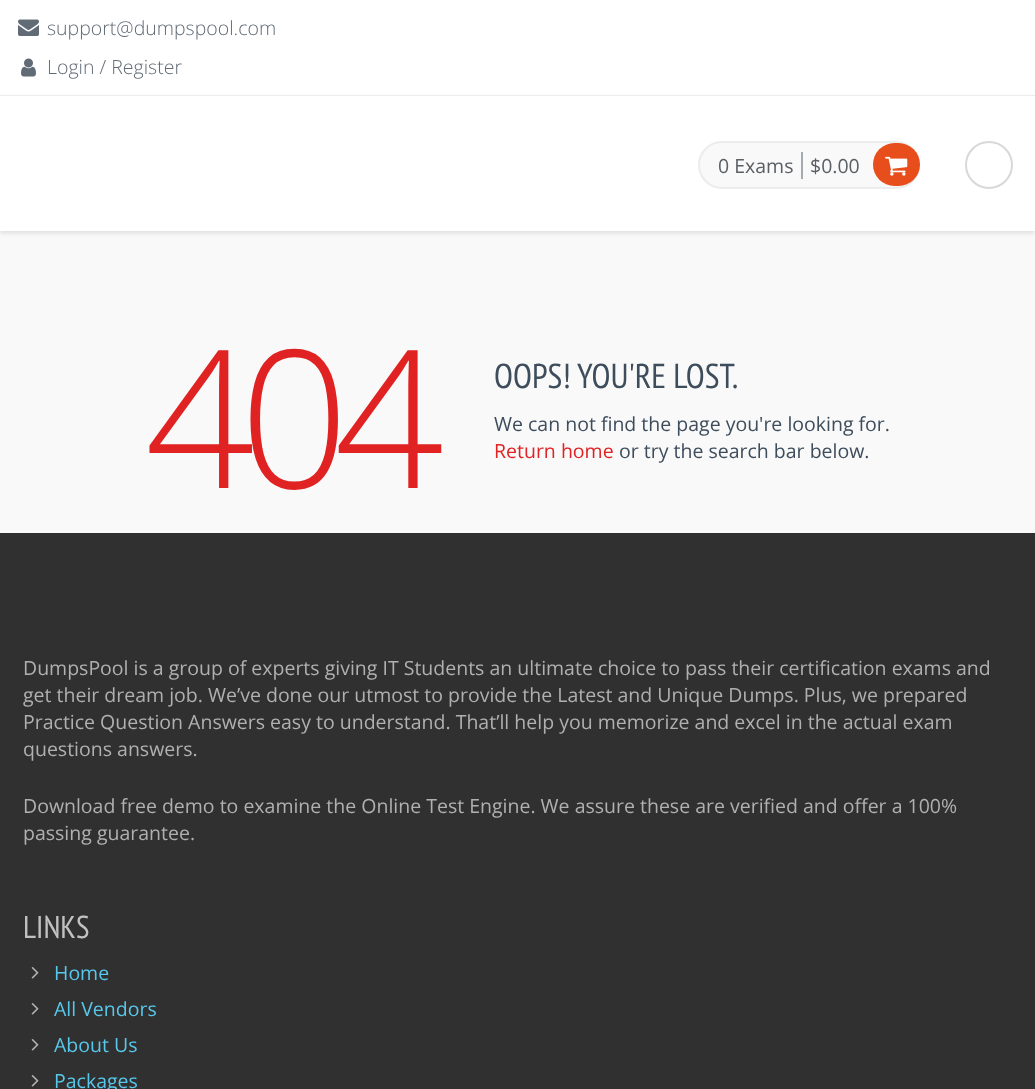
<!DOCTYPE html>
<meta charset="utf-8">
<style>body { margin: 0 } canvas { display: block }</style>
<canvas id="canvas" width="1035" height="1089"></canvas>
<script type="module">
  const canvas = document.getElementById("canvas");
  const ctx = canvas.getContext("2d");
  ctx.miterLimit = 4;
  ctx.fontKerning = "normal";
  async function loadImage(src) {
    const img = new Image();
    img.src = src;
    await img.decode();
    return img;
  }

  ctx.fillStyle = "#f9f9f9";
  ctx.fillRect(0, 0, 1035, 1089);
  ctx.fillStyle = "#ffffff";
  ctx.fillRect(0, 0, 1035, 95);
  ctx.fillStyle = "#eeeeee";
  ctx.fillRect(0, 95, 1035, 1);
  ctx.drawImage(await loadImage("img1.png"), 18, 19, 21, 17);
  ctx.font = "300 19.5px Open Sans";
  ctx.fillStyle = "#616b76";
  ctx.fillText("support@dumpspool.com", 47, 35);
  ctx.drawImage(await loadImage("img2.png"), 21, 58, 15, 19);
  ctx.fillText("Login / Register", 47, 74);
  ctx.fillStyle = "#dddddd";
  ctx.filter = "blur(2px)";
  ctx.beginPath();
  ctx.rect(0, 98, 1035, 135);
  ctx.fill();
  ctx.filter = "none";
  ctx.fillStyle = "#ffffff";
  ctx.fillRect(0, 96, 1035, 135);
  ctx.fillStyle = "#f9f9f9";
  ctx.beginPath();
  ctx.roundRect(699, 142, 220, 46, 23);
  ctx.fill();
  ctx.strokeStyle = "#ececec";
  ctx.lineWidth = 2;
  ctx.stroke();
  ctx.font = "19.5px Open Sans";
  ctx.fillStyle = "#595f65";
  ctx.fillText("0 Exams", 718, 173);
  ctx.fillText("$0.00", 810, 173);
  ctx.fillStyle = "#a5aab0";
  ctx.fillRect(801, 152, 2, 27);
  ctx.fillStyle = "#e84d1c";
  ctx.beginPath();
  ctx.roundRect(873, 143, 47, 43, 21.5);
  ctx.fill();
  ctx.drawImage(await loadImage("img3.png"), 885, 156, 23, 20);
  ctx.beginPath();
  ctx.arc(989, 165, 23, 0, Math.PI * 2);
  ctx.strokeStyle = "#d8d8d8";
  ctx.stroke();
  ctx.letterSpacing = "-15px";
  ctx.font = "300 192px Open Sans";
  ctx.fillStyle = "#e02222";
  ctx.fillText("404", 145, 488);
  ctx.letterSpacing = "0px";
  ctx.font = "34.5px PT Sans Narrow";
  ctx.fillStyle = "#3e4d5c";
  ctx.fillText("OOPS!", 494, 388);
  ctx.fillText("YOU'RE LOST.", 577, 388);
  ctx.font = "19.5px Open Sans";
  ctx.fillText("We can not find the page you're looking for.", 494, 431);
  ctx.fillStyle = "#e02222";
  ctx.fillText("Return home", 494, 458);
  ctx.fillStyle = "#3e4d5c";
  ctx.fillText("or try the search bar below.", 619, 458);
  ctx.fillStyle = "#313030";
  ctx.fillRect(0, 533, 1035, 556);
  ctx.fillStyle = "#b0b0b0";
  ctx.fillText("DumpsPool is a group of experts giving IT Students an ultimate choice to pass their certification exams and", 23, 675);
  ctx.fillText("get their dream job. We’ve done our utmost to provide the Latest and Unique Dumps. Plus, we prepared", 23, 702);
  ctx.fillText("Practice Question Answers easy to understand. That’ll help you memorize and excel in the actual exam", 23, 729);
  ctx.fillText("questions answers.", 23, 756);
  ctx.fillText("Download free demo to examine the Online Test Engine. We assure these are verified and offer a 100%", 23, 813);
  ctx.fillText("passing guarantee.", 23, 840);
  ctx.font = "31.5px PT Sans Narrow";
  ctx.fillStyle = "#c2c1c1";
  ctx.fillText("LINKS", 23, 938);
  ctx.drawImage(await loadImage("img4.png"), 31, 967, 8, 12);
  ctx.font = "19.5px Open Sans";
  ctx.fillStyle = "#57c8eb";
  ctx.fillText("Home", 54, 980);
  ctx.drawImage(await loadImage("img4.png"), 31, 1003, 8, 12);
  ctx.fillText("All Vendors", 54, 1016);
  ctx.drawImage(await loadImage("img4.png"), 31, 1039, 8, 12);
  ctx.fillText("About Us", 54, 1052);
  ctx.drawImage(await loadImage("img4.png"), 31, 1075, 8, 12);
  ctx.fillText("Packages", 54, 1088);
</script>
